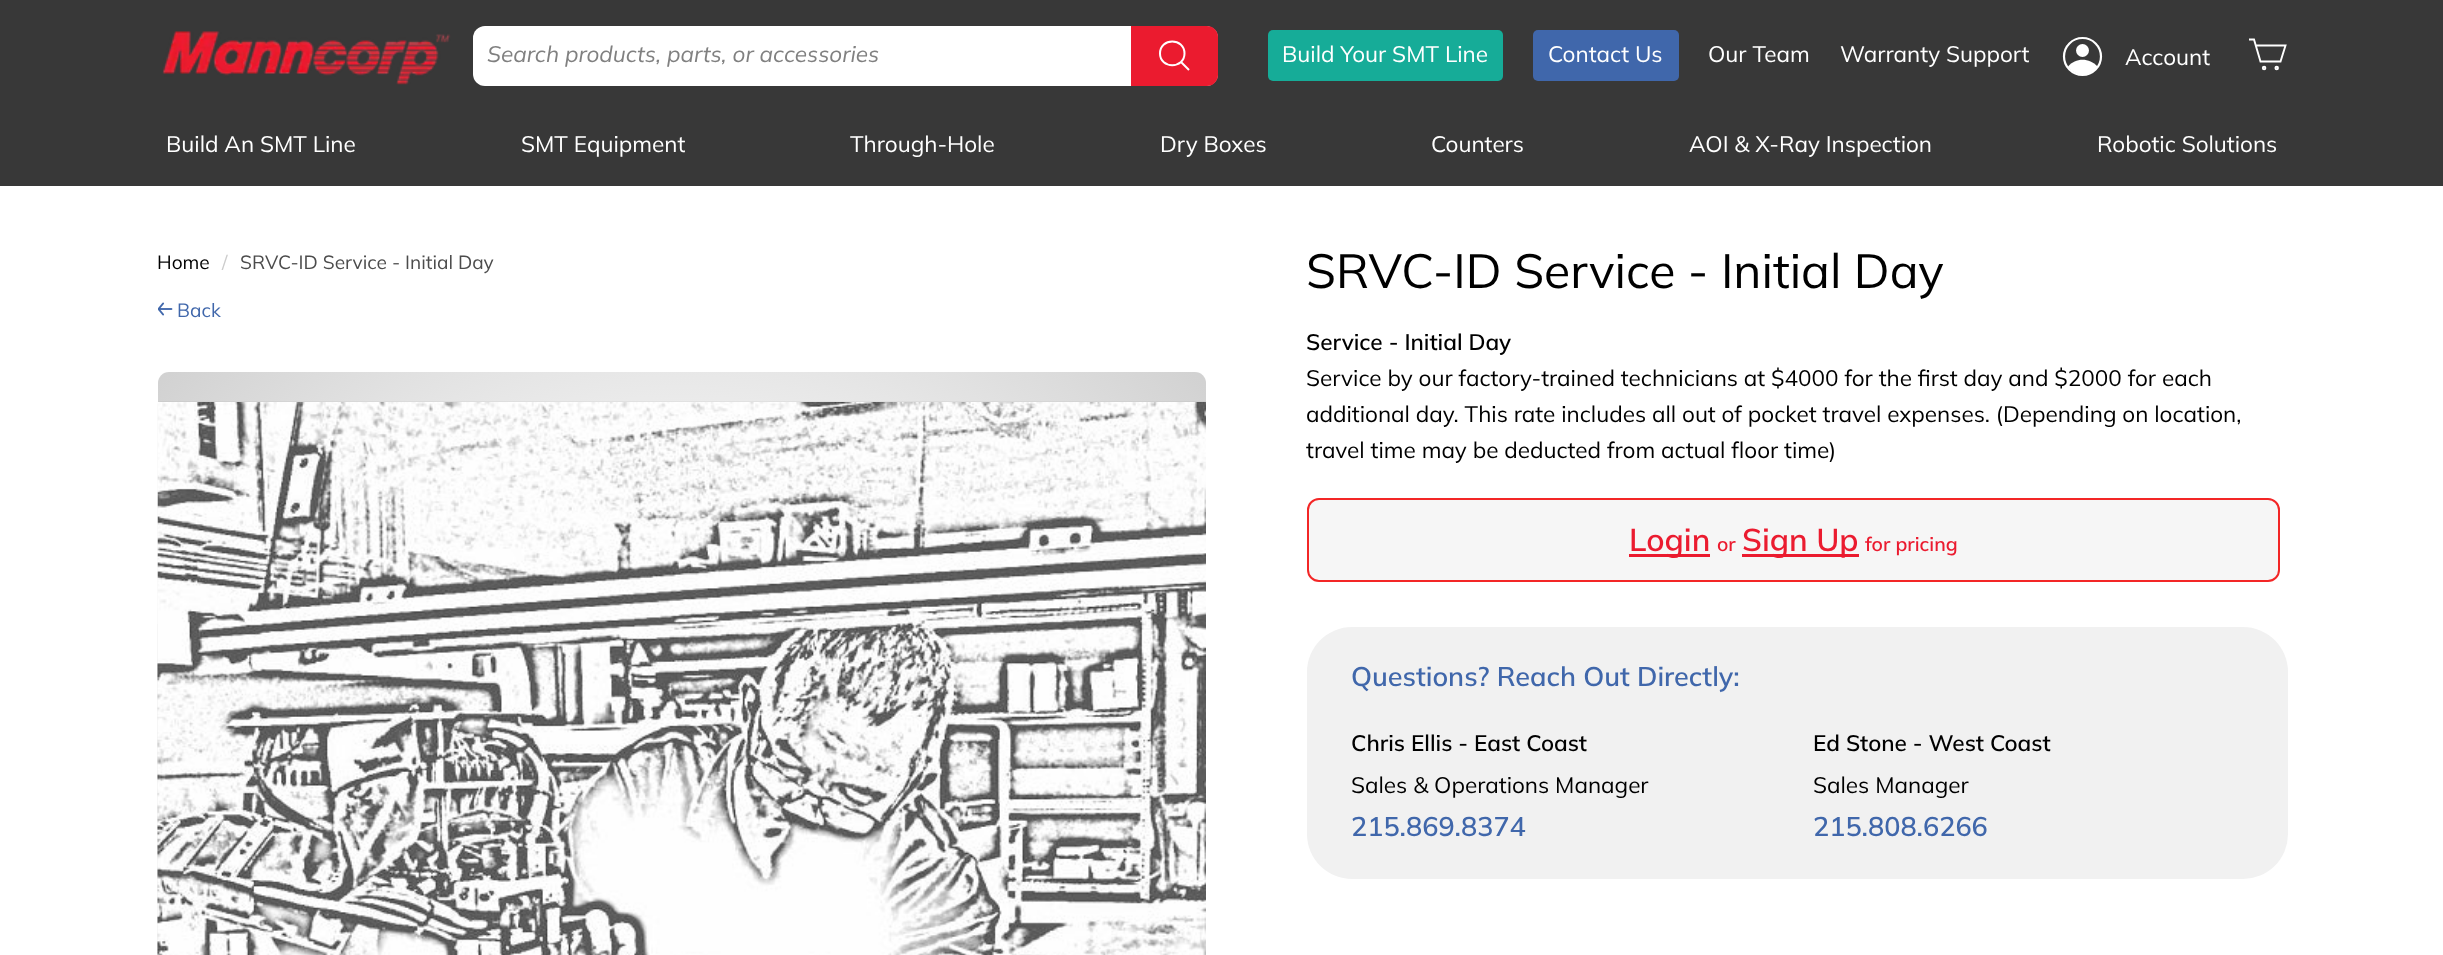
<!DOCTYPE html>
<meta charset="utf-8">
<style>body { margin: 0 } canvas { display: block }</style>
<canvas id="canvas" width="2443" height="955"></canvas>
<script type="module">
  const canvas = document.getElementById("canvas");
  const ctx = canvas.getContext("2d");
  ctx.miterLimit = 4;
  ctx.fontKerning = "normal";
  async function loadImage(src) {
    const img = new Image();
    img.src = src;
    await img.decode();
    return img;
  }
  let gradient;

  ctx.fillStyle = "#ffffff";
  ctx.fillRect(0, 0, 2443, 955);
  ctx.fillStyle = "#383838";
  ctx.fillRect(0, 0, 2443, 186);
  ctx.drawImage(await loadImage("img1.png"), 162, 31, 289, 54);
  ctx.fillStyle = "#ffffff";
  ctx.beginPath();
  ctx.roundRect(473, 26, 745, 60, 12);
  ctx.fill();
  ctx.font = "italic 22.5px Muli";
  ctx.fillStyle = "#808080";
  ctx.fillText("Search products, parts, or accessories", 487, 62);
  ctx.fillStyle = "#eb1b2f";
  ctx.beginPath();
  ctx.roundRect(1131, 26, 87, 60, [0, 11, 11, 0]);
  ctx.fill();
  ctx.beginPath();
  ctx.moveTo(1184.5, 53.5);
  ctx.bezierCurveTo(1184.5, 69, 1160, 69, 1160, 53.5);
  ctx.bezierCurveTo(1160, 37.5, 1184.5, 37.5, 1184.5, 53.5);
  ctx.closePath();
  ctx.moveTo(1189, 70);
  ctx.lineTo(1181, 62);
  ctx.strokeStyle = "#ffffff";
  ctx.lineWidth = 2;
  ctx.stroke();
  ctx.fillStyle = "#16ac98";
  ctx.beginPath();
  ctx.roundRect(1268, 30, 235, 51, 5);
  ctx.fill();
  ctx.font = "22.5px Muli";
  ctx.fillStyle = "#ffffff";
  ctx.fillText("Build Your SMT Line", 1282, 62);
  ctx.fillStyle = "#4067ab";
  ctx.beginPath();
  ctx.roundRect(1533, 30, 146, 51, 5);
  ctx.fill();
  ctx.fillStyle = "#ffffff";
  ctx.fillText("Contact Us", 1548, 62);
  ctx.fillText("Our Team", 1708, 62);
  ctx.fillText("Warranty Support", 1840, 62);
  ctx.beginPath();
  ctx.arc(2082.5, 56.5, 18.5, 0, Math.PI * 2);
  ctx.lineWidth = 2.2;
  ctx.stroke();
  ctx.beginPath();
  ctx.arc(2082.5, 50.5, 6.5, 0, Math.PI * 2);
  ctx.fill();
  ctx.beginPath();
  ctx.moveTo(2097.5, 66.5);
  ctx.bezierCurveTo(2089.5, 57.5, 2075.5, 57.5, 2068, 66.5);
  ctx.bezierCurveTo(2074.5, 77, 2090.5, 77, 2097.5, 66.5);
  ctx.closePath();
  ctx.fill();
  ctx.fillText("Account", 2125, 65);
  ctx.beginPath();
  ctx.moveTo(2256, 45.5);
  ctx.lineTo(2285.5, 45.5);
  ctx.lineTo(2280.5, 61.5);
  ctx.lineTo(2260.5, 61.5);
  ctx.lineTo(2254, 39.5);
  ctx.lineTo(2249, 39.5);
  ctx.lineWidth = 1.9;
  ctx.stroke();
  ctx.beginPath();
  ctx.arc(2264.1, 68, 1.3, 0, Math.PI * 2);
  ctx.stroke();
  ctx.beginPath();
  ctx.arc(2276.7, 68, 1.3, 0, Math.PI * 2);
  ctx.stroke();
  ctx.fillText("Build An SMT Line", 166, 152);
  ctx.fillText("SMT Equipment", 521, 152);
  ctx.fillText("Through-Hole", 850, 152);
  ctx.fillText("Dry Boxes", 1160, 152);
  ctx.fillText("Counters", 1431, 152);
  ctx.fillText("AOI & X-Ray Inspection", 1689, 152);
  ctx.fillText("Robotic Solutions", 2097, 152);
  ctx.font = "19.1px Muli";
  ctx.fillStyle = "#000000";
  ctx.fillText("Home", 157, 269);
  ctx.fillStyle = "#cccccc";
  ctx.fillText("/", 222, 269);
  ctx.fillStyle = "#4c4c4c";
  ctx.fillText("SRVC-ID Service - Initial Day", 240, 269);
  ctx.drawImage(await loadImage("img2.png"), 158, 302, 15, 14);
  ctx.fillStyle = "#4067ab";
  ctx.fillText("Back", 177, 317);
  gradient = ctx.createRadialGradient(682, 896, 0, 682, 896, 741);
  gradient.addColorStop(0.4, "#ffffff");
  gradient.addColorStop(1, "#d1d1d1");
  ctx.fillStyle = gradient;
  ctx.beginPath();
  ctx.roundRect(158, 372, 1048, 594, 11);
  ctx.fill();
  ctx.drawImage(await loadImage("img3.png"), 157, 401, 1049, 554);
  ctx.font = "48px Muli";
  ctx.fillStyle = "#000000";
  ctx.fillText("SRVC-ID Service - Initial Day", 1306, 288);
  ctx.font = "600 22.5px Muli";
  ctx.fillText("Service - Initial Day", 1306, 350);
  ctx.font = "22.5px Muli";
  ctx.fillText("Service by our factory-trained technicians at $4000 for the first day and $2000 for each", 1306, 386);
  ctx.fillText("additional day. This rate includes all out of pocket travel expenses. (Depending on location,", 1306, 422);
  ctx.fillText("travel time may be deducted from actual floor time)", 1306, 458);
  ctx.fillStyle = "#f6f6f6";
  ctx.beginPath();
  ctx.roundRect(1308, 499, 971, 82, 11);
  ctx.fill();
  ctx.strokeStyle = "#f32626";
  ctx.lineWidth = 2;
  ctx.stroke();
  ctx.fillStyle = "#eb1b2f";
  ctx.fillRect(1629, 554, 81, 3);
  ctx.font = "600 31.5px Muli";
  ctx.fillText("Login", 1629, 551);
  ctx.font = "600 19.5px Muli";
  ctx.fillText("or", 1717, 551);
  ctx.fillRect(1742, 554, 117, 3);
  ctx.font = "600 31.5px Muli";
  ctx.fillText("Sign Up", 1742, 551);
  ctx.font = "600 19.5px Muli";
  ctx.fillText("for pricing", 1865, 551);
  ctx.fillStyle = "#f1f1f1";
  ctx.beginPath();
  ctx.roundRect(1307, 627, 981, 252, 45);
  ctx.fill();
  ctx.font = "600 27px Muli";
  ctx.fillStyle = "#4067ab";
  ctx.fillText("Questions? Reach Out Directly:", 1351, 686);
  ctx.font = "600 22.5px Muli";
  ctx.fillStyle = "#000000";
  ctx.fillText("Chris Ellis - East Coast", 1351, 751);
  ctx.font = "22.5px Muli";
  ctx.fillText("Sales & Operations Manager", 1351, 793);
  ctx.font = "600 27px Muli";
  ctx.fillStyle = "#4067ab";
  ctx.fillText("215.869.8374", 1351, 836);
  ctx.font = "600 22.5px Muli";
  ctx.fillStyle = "#000000";
  ctx.fillText("Ed Stone - West Coast", 1813, 751);
  ctx.font = "22.5px Muli";
  ctx.fillText("Sales Manager", 1813, 793);
  ctx.font = "600 27px Muli";
  ctx.fillStyle = "#4067ab";
  ctx.fillText("215.808.6266", 1813, 836);
</script>
